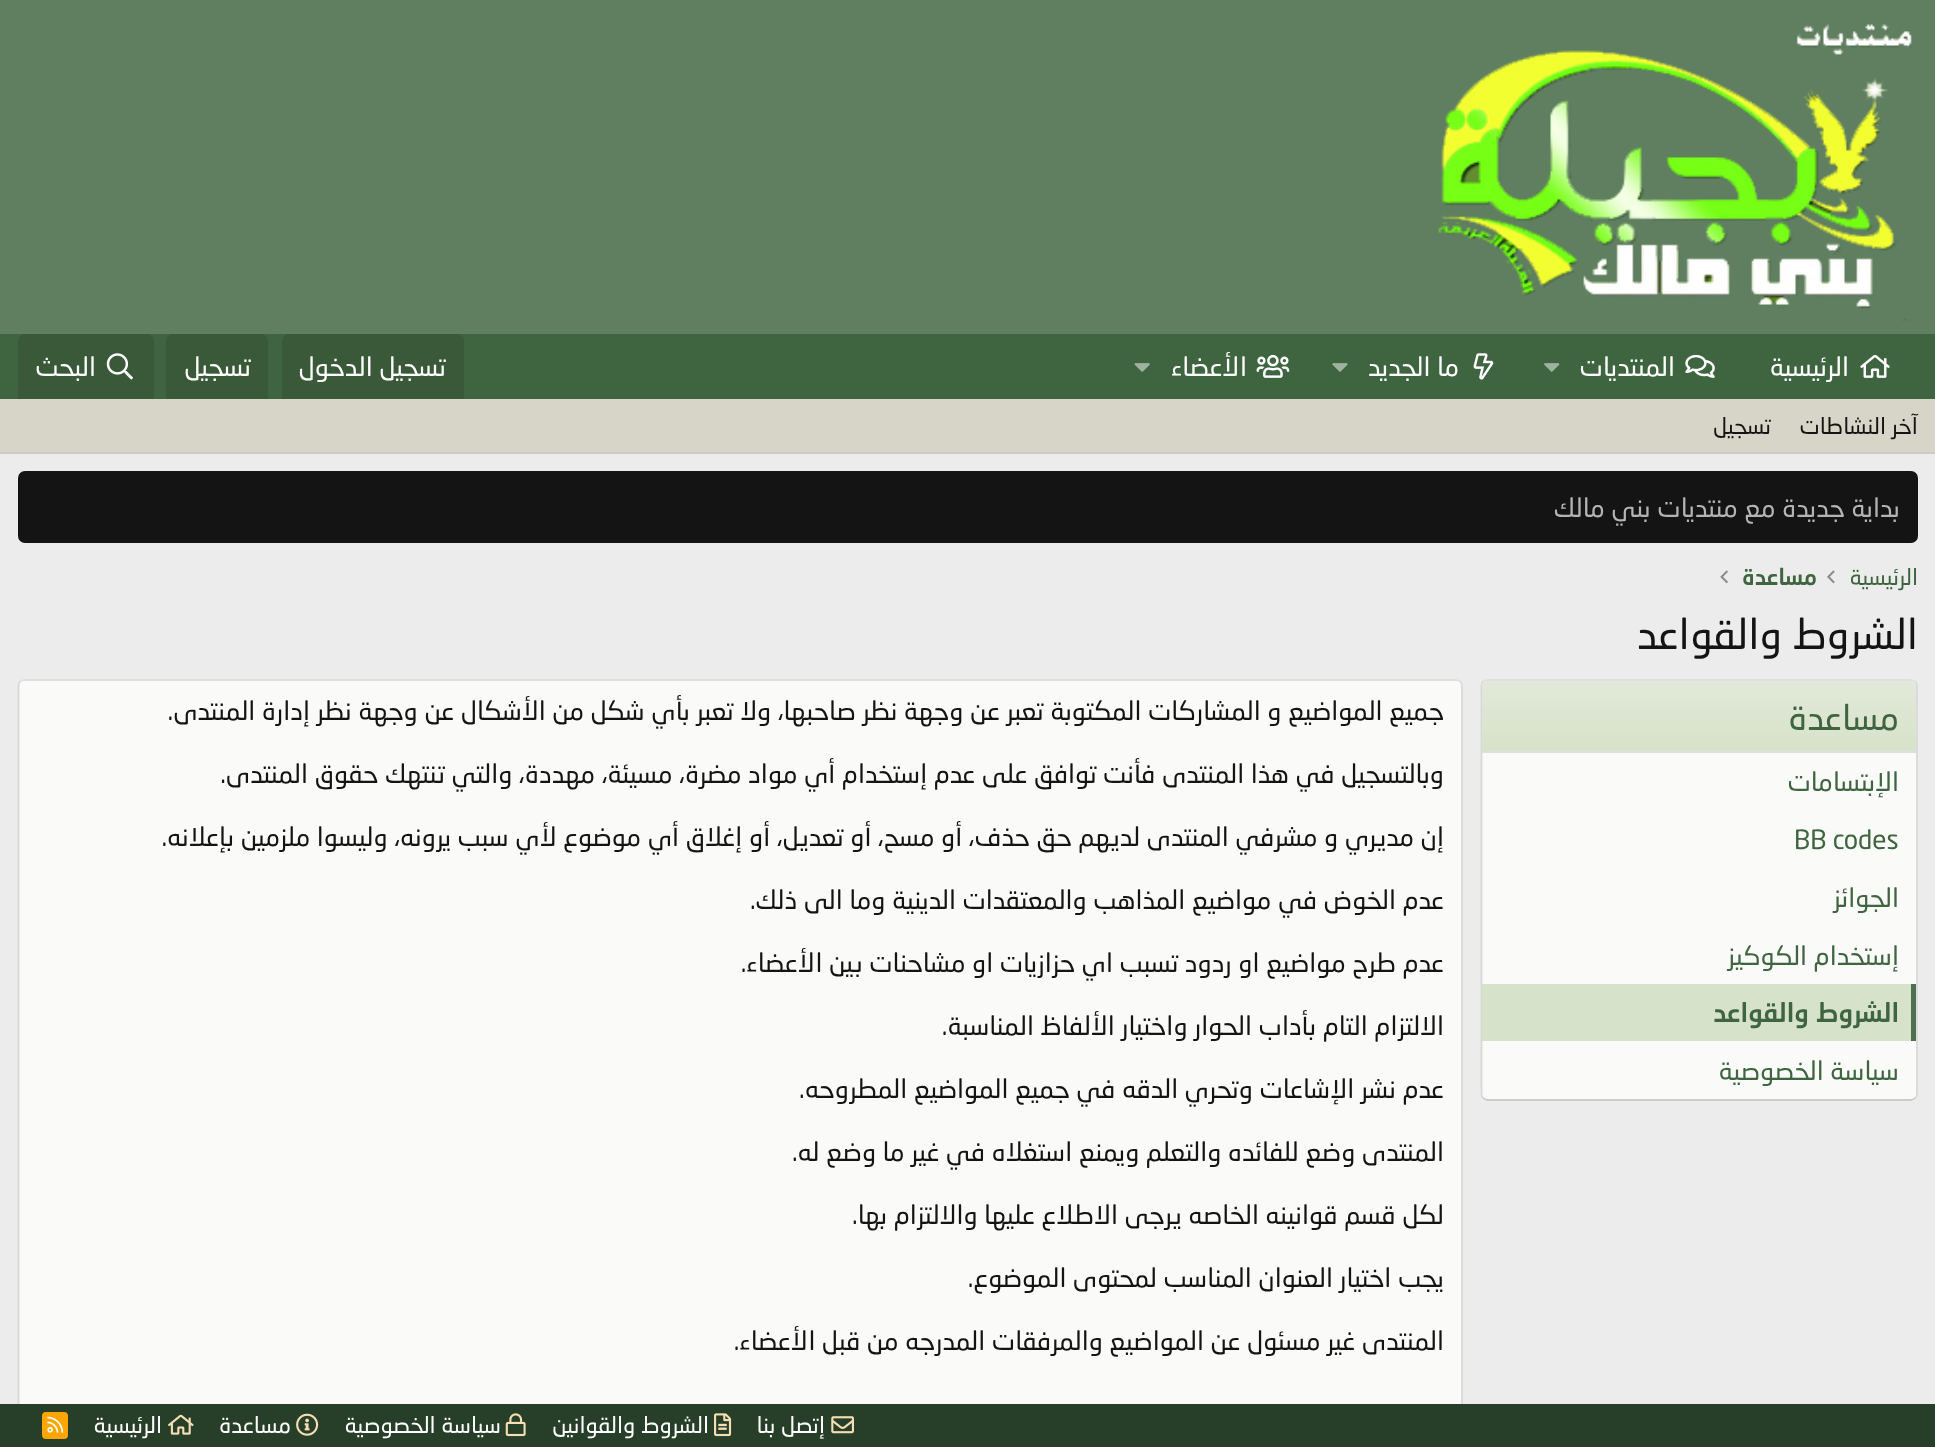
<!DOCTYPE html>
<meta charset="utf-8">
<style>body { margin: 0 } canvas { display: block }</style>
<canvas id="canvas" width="1935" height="1447"></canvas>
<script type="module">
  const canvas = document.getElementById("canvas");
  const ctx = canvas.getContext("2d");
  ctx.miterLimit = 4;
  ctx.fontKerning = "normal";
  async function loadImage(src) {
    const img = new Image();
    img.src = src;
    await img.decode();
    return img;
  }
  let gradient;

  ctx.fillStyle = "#ececec";
  ctx.fillRect(0, 0, 1935, 1447);
  ctx.fillStyle = "#607f61";
  ctx.fillRect(0, 0, 1935, 334);
  ctx.drawImage(await loadImage("img1.png"), 1438, 24, 474, 298);
  ctx.fillStyle = "#3f6540";
  ctx.fillRect(0, 334, 1935, 65);
  ctx.drawImage(await loadImage("img2.png"), 1860, 355, 30, 23);
  ctx.direction = "rtl";
  ctx.font = "26.25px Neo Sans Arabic";
  ctx.fillStyle = "#ffffff";
  ctx.fillText("الرئيسية", 1849, 376);
  ctx.drawImage(await loadImage("img3.png"), 1685, 354, 30, 24);
  ctx.fillText("المنتديات", 1675, 376);
  ctx.drawImage(await loadImage("img4.png"), 1544, 363, 16, 9);
  ctx.drawImage(await loadImage("img5.png"), 1473, 353, 21, 27);
  ctx.fillText("ما الجديد", 1459, 376);
  ctx.drawImage(await loadImage("img6.png"), 1332, 363, 16, 9);
  ctx.drawImage(await loadImage("img7.png"), 1256, 354, 34, 24);
  ctx.fillText("الأعضاء", 1247, 376);
  ctx.drawImage(await loadImage("img8.png"), 1134, 363, 16, 9);
  ctx.fillStyle = "#395939";
  ctx.beginPath();
  ctx.roundRect(282, 334, 182, 65, [7, 7, 0, 0]);
  ctx.fill();
  ctx.fillStyle = "#ffffff";
  ctx.fillText("تسجيل الدخول", 446, 376);
  ctx.fillStyle = "#395939";
  ctx.beginPath();
  ctx.roundRect(166, 334, 102, 65, [7, 7, 0, 0]);
  ctx.fill();
  ctx.fillStyle = "#ffffff";
  ctx.fillText("تسجيل", 251, 376);
  ctx.fillStyle = "#395939";
  ctx.beginPath();
  ctx.roundRect(18, 334, 136, 65, [7, 7, 0, 0]);
  ctx.fill();
  ctx.drawImage(await loadImage("img9.png"), 106, 353, 27, 27);
  ctx.fillStyle = "#ffffff";
  ctx.fillText("البحث", 96, 376);
  ctx.fillStyle = "#d6d5c8";
  ctx.fillRect(0, 399, 1935, 53);
  ctx.fillStyle = "#cbcbcb";
  ctx.fillRect(0, 452, 1935, 2);
  ctx.font = "22.75px Neo Sans Arabic";
  ctx.fillStyle = "#141414";
  ctx.fillText("آخر النشاطات", 1918, 434);
  ctx.fillText("تسجيل", 1771, 434);
  ctx.beginPath();
  ctx.roundRect(18, 471, 1900, 72, 7);
  ctx.fill();
  ctx.font = "26.25px Neo Sans Arabic";
  ctx.fillStyle = "#b4b4b4";
  ctx.fillText("بداية جديدة مع منتديات بني مالك", 1900, 517);
  ctx.font = "22.75px Neo Sans Arabic";
  ctx.fillStyle = "#3f6540";
  ctx.fillText("الرئيسية", 1918, 585);
  ctx.drawImage(await loadImage("img10.png"), 1827, 570, 8, 14);
  ctx.font = "500 22.75px Neo Sans Arabic";
  ctx.fillText("مساعدة", 1817, 585);
  ctx.drawImage(await loadImage("img11.png"), 1720, 570, 8, 14);
  ctx.font = "42px Neo Sans Arabic";
  ctx.fillStyle = "#141414";
  ctx.fillText("الشروط والقواعد", 1918, 649);
  ctx.fillStyle = "#fafaf9";
  ctx.beginPath();
  ctx.roundRect(1481, 679, 437, 422, 7);
  ctx.fill();
  ctx.beginPath();
  ctx.moveTo(1483, 681.5);
  ctx.bezierCurveTo(1484.5, 680.5, 1486, 680, 1487.5, 680);
  ctx.lineTo(1911, 680);
  ctx.bezierCurveTo(1912.5, 680, 1914, 680.5, 1915.5, 681.5);
  ctx.strokeStyle = "#dfdfdf";
  ctx.lineWidth = 1.8;
  ctx.stroke();
  ctx.beginPath();
  ctx.moveTo(1915.5, 681.5);
  ctx.bezierCurveTo(1916.5, 683, 1917, 684.5, 1917, 686);
  ctx.lineTo(1917, 1094);
  ctx.bezierCurveTo(1917, 1095.5, 1916.5, 1097, 1915.5, 1098);
  ctx.strokeStyle = "#d8d8d8";
  ctx.stroke();
  ctx.beginPath();
  ctx.moveTo(1915.5, 1098);
  ctx.bezierCurveTo(1914, 1099, 1912.5, 1100, 1911, 1100);
  ctx.lineTo(1487.5, 1100);
  ctx.bezierCurveTo(1486, 1100, 1484.5, 1099, 1483, 1098);
  ctx.strokeStyle = "#cbcbcb";
  ctx.stroke();
  ctx.beginPath();
  ctx.moveTo(1483, 1098);
  ctx.bezierCurveTo(1482, 1097, 1481.5, 1095.5, 1481.5, 1094);
  ctx.lineTo(1481.5, 686);
  ctx.bezierCurveTo(1481.5, 684.5, 1482, 683, 1483, 681.5);
  ctx.strokeStyle = "#d8d8d8";
  ctx.stroke();
  gradient = ctx.createLinearGradient(1699, 751, 1699, 681);
  gradient.addColorStop(0, "#d6e2c9");
  gradient.addColorStop(1, "#e3e9da");
  ctx.fillStyle = gradient;
  ctx.beginPath();
  ctx.roundRect(1482, 681, 434, 70, [5, 5, 0, 0]);
  ctx.fill();
  ctx.fillStyle = "#dfdfdf";
  ctx.fillRect(1482, 751, 434, 2);
  ctx.font = "35px Neo Sans Arabic";
  ctx.fillStyle = "#3f6540";
  ctx.fillText("مساعدة", 1899, 730);
  ctx.font = "26.25px Neo Sans Arabic";
  ctx.fillText("الإبتسامات", 1899, 791);
  ctx.direction = "ltr";
  ctx.fillText("BB codes", 1794, 849);
  ctx.direction = "rtl";
  ctx.fillText("الجوائز", 1899, 907);
  ctx.fillText("إستخدام الكوكيز", 1899, 965);
  ctx.fillStyle = "#d6e2c9";
  ctx.fillRect(1482, 984, 429, 57);
  ctx.fillStyle = "#4e7050";
  ctx.fillRect(1911, 984, 5, 57);
  ctx.font = "500 26.25px Neo Sans Arabic";
  ctx.fillStyle = "#3f6540";
  ctx.fillText("الشروط والقواعد", 1899, 1022);
  ctx.font = "26.25px Neo Sans Arabic";
  ctx.fillText("سياسة الخصوصية", 1899, 1080);
  ctx.fillStyle = "#fafaf9";
  ctx.beginPath();
  ctx.roundRect(18, 679, 1445, 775, 7);
  ctx.fill();
  ctx.beginPath();
  ctx.moveTo(20, 681.5);
  ctx.bezierCurveTo(21.5, 680.5, 23, 680, 24.5, 680);
  ctx.lineTo(1456, 680);
  ctx.bezierCurveTo(1457.5, 680, 1459, 680.5, 1460.5, 681.5);
  ctx.strokeStyle = "#dfdfdf";
  ctx.stroke();
  ctx.beginPath();
  ctx.moveTo(1460.5, 681.5);
  ctx.bezierCurveTo(1461.5, 683, 1462, 684.5, 1462, 686);
  ctx.lineTo(1462, 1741);
  ctx.bezierCurveTo(1462, 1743, 1461.5, 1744.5, 1460.5, 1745.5);
  ctx.strokeStyle = "#d8d8d8";
  ctx.stroke();
  ctx.beginPath();
  ctx.moveTo(20, 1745.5);
  ctx.bezierCurveTo(19, 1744.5, 18.5, 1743, 18.5, 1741);
  ctx.lineTo(18.5, 686);
  ctx.bezierCurveTo(18.5, 684.5, 19, 683, 20, 681.5);
  ctx.stroke();
  ctx.fillStyle = "#141414";
  ctx.fillText("جميع المواضيع و المشاركات المكتوبة تعبر عن وجهة نظر صاحبها، ولا تعبر بأي شكل من الأشكال عن وجهة نظر إدارة المنتدى.", 1444, 720);
  ctx.fillText("وبالتسجيل في هذا المنتدى فأنت توافق على عدم إستخدام أي مواد مضرة، مسيئة، مهددة، والتي تنتهك حقوق المنتدى.", 1444, 783);
  ctx.fillText("إن مديري و مشرفي المنتدى لديهم حق حذف، أو مسح، أو تعديل، أو إغلاق أي موضوع لأي سبب يرونه، وليسوا ملزمين بإعلانه.", 1444, 846);
  ctx.fillText("عدم الخوض في مواضيع المذاهب والمعتقدات الدينية وما الى ذلك.", 1444, 909);
  ctx.fillText("عدم طرح مواضيع او ردود تسبب اي حزازيات او مشاحنات بين الأعضاء.", 1444, 972);
  ctx.fillText("الالتزام التام بأداب الحوار واختيار الألفاظ المناسبة.", 1444, 1035);
  ctx.fillText("عدم نشر الإشاعات وتحري الدقه في جميع المواضيع المطروحه.", 1444, 1098);
  ctx.fillText("المنتدى وضع للفائده والتعلم ويمنع استغلاه في غير ما وضع له.", 1444, 1161);
  ctx.fillText("لكل قسم قوانينه الخاصه يرجى الاطلاع عليها والالتزام بها.", 1444, 1224);
  ctx.fillText("يجب اختيار العنوان المناسب لمحتوى الموضوع.", 1444, 1287);
  ctx.fillText("المنتدى غير مسئول عن المواضيع والمرفقات المدرجه من قبل الأعضاء.", 1444, 1350);
  ctx.fillStyle = "#273f28";
  ctx.fillRect(0, 1404, 1935, 43);
  ctx.drawImage(await loadImage("img12.png"), 831, 1416, 23, 18);
  ctx.font = "22.75px Neo Sans Arabic";
  ctx.fillStyle = "#ffffff";
  ctx.fillText("إتصل بنا", 825, 1433);
  ctx.drawImage(await loadImage("img13.png"), 714, 1413, 18, 24);
  ctx.fillText("الشروط والقوانين", 709, 1433);
  ctx.drawImage(await loadImage("img14.png"), 505, 1413, 21, 24);
  ctx.fillText("سياسة الخصوصية", 501, 1433);
  ctx.drawImage(await loadImage("img15.png"), 296, 1413, 23, 23);
  ctx.fillText("مساعدة", 291, 1433);
  ctx.drawImage(await loadImage("img16.png"), 168, 1414, 26, 21);
  ctx.fillText("الرئيسية", 162, 1433);
  ctx.fillStyle = "#ffa500";
  ctx.beginPath();
  ctx.roundRect(42, 1412, 26, 27, 4);
  ctx.fill();
  ctx.drawImage(await loadImage("img17.png"), 47, 1416, 17, 17);
</script>
